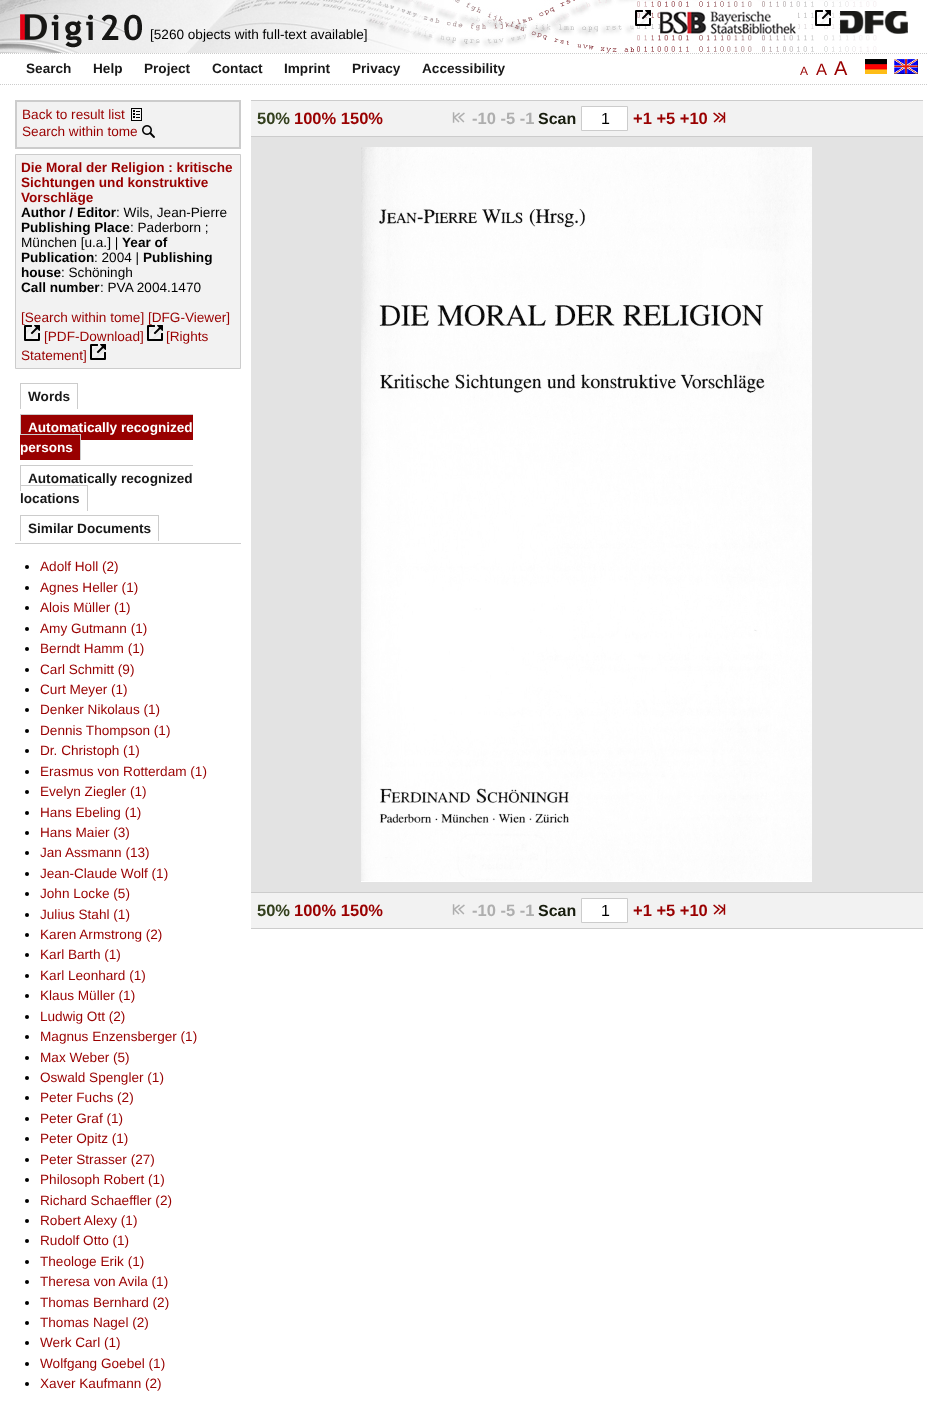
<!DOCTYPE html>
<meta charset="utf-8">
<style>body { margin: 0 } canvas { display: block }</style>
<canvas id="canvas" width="929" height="1423"></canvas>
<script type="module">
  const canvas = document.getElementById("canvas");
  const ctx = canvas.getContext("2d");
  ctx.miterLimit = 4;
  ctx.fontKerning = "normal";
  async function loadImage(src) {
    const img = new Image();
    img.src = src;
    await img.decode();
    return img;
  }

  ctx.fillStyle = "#ffffff";
  ctx.fillRect(0, 0, 929, 1423);
  ctx.drawImage(await loadImage("img1.png"), 0, 0, 877, 53);
  ctx.drawImage(await loadImage("img2.png"), 660, 10, 138, 24);
  ctx.drawImage(await loadImage("img3.png"), 635, 10, 16, 16);
  ctx.drawImage(await loadImage("img4.png"), 840, 11, 68, 23);
  ctx.drawImage(await loadImage("img5.png"), 815, 10, 16, 16);
  ctx.font = "13.6px Liberation Sans";
  ctx.fillStyle = "#000000";
  ctx.fillText("[5260 objects with full-text available]", 150, 39);
  ctx.beginPath();
  ctx.moveTo(0, 53.5);
  ctx.lineTo(928, 53.5);
  ctx.strokeStyle = "#cccccc";
  ctx.setLineDash([1, 1]);
  ctx.stroke();
  ctx.beginPath();
  ctx.moveTo(0, 84.5);
  ctx.lineTo(928, 84.5);
  ctx.stroke();
  ctx.font = "bold 13.6px Liberation Sans";
  ctx.fillStyle = "#181818";
  ctx.fillText("Search", 26, 73);
  ctx.fillText("Help", 93, 73);
  ctx.fillText("Project", 144, 73);
  ctx.fillText("Contact", 212, 73);
  ctx.fillText("Imprint", 284, 73);
  ctx.fillText("Privacy", 352, 73);
  ctx.fillText("Accessibility", 422, 73);
  ctx.font = "12px Liberation Sans";
  ctx.fillStyle = "#990000";
  ctx.fillText("A", 800, 75);
  ctx.font = "16.5px Liberation Sans";
  ctx.fillText("A", 816, 75);
  ctx.font = "20px Liberation Sans";
  ctx.fillText("A", 834, 75);
  ctx.drawImage(await loadImage("img6.png"), 865, 59, 22, 15);
  ctx.drawImage(await loadImage("img7.png"), 894, 59, 24, 15);
  ctx.fillStyle = "#f2f2f2";
  ctx.beginPath();
  ctx.rect(16, 101, 224, 47);
  ctx.fill();
  ctx.lineWidth = 2;
  ctx.setLineDash([]);
  ctx.stroke();
  ctx.font = "13.6px Liberation Sans";
  ctx.fillStyle = "#990000";
  ctx.fillText("Back to result list", 22, 119);
  ctx.drawImage(await loadImage("img8.png"), 131, 108, 11, 13);
  ctx.fillText("Search within tome", 22, 136);
  ctx.drawImage(await loadImage("img9.png"), 142, 125, 13, 13);
  ctx.fillStyle = "#f2f2f2";
  ctx.beginPath();
  ctx.rect(15.5, 154.5, 225, 214);
  ctx.fill();
  ctx.lineWidth = 1;
  ctx.stroke();
  ctx.font = "bold 13.6px Liberation Sans";
  ctx.fillStyle = "#990000";
  ctx.fillText("Die Moral der Religion : kritische", 21, 172);
  ctx.fillText("Sichtungen und konstruktive", 21, 187);
  ctx.fillText("Vorschläge", 21, 202);
  ctx.fillStyle = "#000000";
  ctx.fillText("Author / Editor", 21, 217);
  ctx.font = "13.6px Liberation Sans";
  ctx.fillText(": Wils, Jean-Pierre", 116, 217);
  ctx.font = "bold 13.6px Liberation Sans";
  ctx.fillText("Publishing Place", 21, 232);
  ctx.font = "13.6px Liberation Sans";
  ctx.fillText(": Paderborn ;", 130, 232);
  ctx.fillText("München [u.a.] |", 21, 247);
  ctx.font = "bold 13.6px Liberation Sans";
  ctx.fillText("Year of", 122, 247);
  ctx.fillText("Publication", 21, 262);
  ctx.font = "13.6px Liberation Sans";
  ctx.fillText(": 2004 |", 94, 262);
  ctx.font = "bold 13.6px Liberation Sans";
  ctx.fillText("Publishing", 143, 262);
  ctx.fillText("house", 21, 277);
  ctx.font = "13.6px Liberation Sans";
  ctx.fillText(": Schöningh", 61, 277);
  ctx.font = "bold 13.6px Liberation Sans";
  ctx.fillText("Call number", 21, 292);
  ctx.font = "13.6px Liberation Sans";
  ctx.fillText(": PVA 2004.1470", 100, 292);
  ctx.fillStyle = "#990000";
  ctx.fillText("[Search within tome] [DFG-Viewer]", 21, 322);
  ctx.drawImage(await loadImage("img10.png"), 24, 325, 16, 16);
  ctx.fillText("[Rights", 166, 341);
  ctx.fillText("Statement]", 21, 360);
  ctx.drawImage(await loadImage("img10.png"), 90, 344, 16, 16);
  ctx.fillText("[PDF-Download]", 44, 341);
  ctx.drawImage(await loadImage("img10.png"), 147, 325, 16, 16);
  ctx.fillStyle = "#cccccc";
  ctx.fillRect(15, 543, 226, 1);
  ctx.font = "bold 13.6px Liberation Sans";
  ctx.fillStyle = "#181818";
  ctx.fillText("Words", 28, 401);
  ctx.fillStyle = "#cccccc";
  ctx.fillRect(20, 383, 58, 1);
  ctx.fillRect(77, 383, 1, 26);
  ctx.fillRect(20, 383, 1, 26);
  ctx.fillStyle = "#990000";
  ctx.fillRect(21, 415, 172, 25);
  ctx.fillStyle = "#cccccc";
  ctx.fillRect(20, 414, 173, 1);
  ctx.fillRect(20, 414, 1, 26);
  ctx.fillRect(20, 434, 61, 1);
  ctx.fillRect(80, 434, 1, 26);
  ctx.fillStyle = "#ffffff";
  ctx.fillText("Automatically recognized", 28, 432);
  ctx.fillStyle = "#990000";
  ctx.fillRect(20, 435, 60, 25);
  ctx.fillStyle = "#ffffff";
  ctx.fillText("persons", 20, 452);
  ctx.fillStyle = "#cccccc";
  ctx.fillRect(20, 465, 173, 1);
  ctx.fillRect(20, 465, 1, 26);
  ctx.fillRect(20, 485, 68, 1);
  ctx.fillRect(87, 485, 1, 26);
  ctx.fillStyle = "#181818";
  ctx.fillText("Automatically recognized", 28, 483);
  ctx.fillText("locations", 20, 503);
  ctx.fillText("Similar Documents", 28, 533);
  ctx.fillStyle = "#cccccc";
  ctx.fillRect(20, 515, 139, 1);
  ctx.fillRect(158, 515, 1, 26);
  ctx.fillRect(20, 515, 1, 26);
  ctx.fillStyle = "#000000";
  ctx.beginPath();
  ctx.arc(27, 567, 2, 0, Math.PI * 2);
  ctx.fill();
  ctx.font = "13.6px Liberation Sans";
  ctx.fillStyle = "#990000";
  ctx.fillText("Adolf Holl (2)", 40, 571);
  ctx.fillStyle = "#000000";
  ctx.beginPath();
  ctx.arc(27, 588, 2, 0, Math.PI * 2);
  ctx.fill();
  ctx.fillStyle = "#990000";
  ctx.fillText("Agnes Heller (1)", 40, 592);
  ctx.fillStyle = "#000000";
  ctx.beginPath();
  ctx.arc(27, 608, 2, 0, Math.PI * 2);
  ctx.fill();
  ctx.fillStyle = "#990000";
  ctx.fillText("Alois Müller (1)", 40, 612);
  ctx.fillStyle = "#000000";
  ctx.beginPath();
  ctx.arc(27, 629, 2, 0, Math.PI * 2);
  ctx.fill();
  ctx.fillStyle = "#990000";
  ctx.fillText("Amy Gutmann (1)", 40, 633);
  ctx.fillStyle = "#000000";
  ctx.beginPath();
  ctx.arc(27, 649, 2, 0, Math.PI * 2);
  ctx.fill();
  ctx.fillStyle = "#990000";
  ctx.fillText("Berndt Hamm (1)", 40, 653);
  ctx.fillStyle = "#000000";
  ctx.beginPath();
  ctx.arc(27, 670, 2, 0, Math.PI * 2);
  ctx.fill();
  ctx.fillStyle = "#990000";
  ctx.fillText("Carl Schmitt (9)", 40, 674);
  ctx.fillStyle = "#000000";
  ctx.beginPath();
  ctx.arc(27, 690, 2, 0, Math.PI * 2);
  ctx.fill();
  ctx.fillStyle = "#990000";
  ctx.fillText("Curt Meyer (1)", 40, 694);
  ctx.fillStyle = "#000000";
  ctx.beginPath();
  ctx.arc(27, 710, 2, 0, Math.PI * 2);
  ctx.fill();
  ctx.fillStyle = "#990000";
  ctx.fillText("Denker Nikolaus (1)", 40, 714);
  ctx.fillStyle = "#000000";
  ctx.beginPath();
  ctx.arc(27, 731, 2, 0, Math.PI * 2);
  ctx.fill();
  ctx.fillStyle = "#990000";
  ctx.fillText("Dennis Thompson (1)", 40, 735);
  ctx.fillStyle = "#000000";
  ctx.beginPath();
  ctx.arc(27, 751, 2, 0, Math.PI * 2);
  ctx.fill();
  ctx.fillStyle = "#990000";
  ctx.fillText("Dr. Christoph (1)", 40, 755);
  ctx.fillStyle = "#000000";
  ctx.beginPath();
  ctx.arc(27, 772, 2, 0, Math.PI * 2);
  ctx.fill();
  ctx.fillStyle = "#990000";
  ctx.fillText("Erasmus von Rotterdam (1)", 40, 776);
  ctx.fillStyle = "#000000";
  ctx.beginPath();
  ctx.arc(27, 792, 2, 0, Math.PI * 2);
  ctx.fill();
  ctx.fillStyle = "#990000";
  ctx.fillText("Evelyn Ziegler (1)", 40, 796);
  ctx.fillStyle = "#000000";
  ctx.beginPath();
  ctx.arc(27, 813, 2, 0, Math.PI * 2);
  ctx.fill();
  ctx.fillStyle = "#990000";
  ctx.fillText("Hans Ebeling (1)", 40, 817);
  ctx.fillStyle = "#000000";
  ctx.beginPath();
  ctx.arc(27, 833, 2, 0, Math.PI * 2);
  ctx.fill();
  ctx.fillStyle = "#990000";
  ctx.fillText("Hans Maier (3)", 40, 837);
  ctx.fillStyle = "#000000";
  ctx.beginPath();
  ctx.arc(27, 853, 2, 0, Math.PI * 2);
  ctx.fill();
  ctx.fillStyle = "#990000";
  ctx.fillText("Jan Assmann (13)", 40, 857);
  ctx.fillStyle = "#000000";
  ctx.beginPath();
  ctx.arc(27, 874, 2, 0, Math.PI * 2);
  ctx.fill();
  ctx.fillStyle = "#990000";
  ctx.fillText("Jean-Claude Wolf (1)", 40, 878);
  ctx.fillStyle = "#000000";
  ctx.beginPath();
  ctx.arc(27, 894, 2, 0, Math.PI * 2);
  ctx.fill();
  ctx.fillStyle = "#990000";
  ctx.fillText("John Locke (5)", 40, 898);
  ctx.fillStyle = "#000000";
  ctx.beginPath();
  ctx.arc(27, 915, 2, 0, Math.PI * 2);
  ctx.fill();
  ctx.fillStyle = "#990000";
  ctx.fillText("Julius Stahl (1)", 40, 919);
  ctx.fillStyle = "#000000";
  ctx.beginPath();
  ctx.arc(27, 935, 2, 0, Math.PI * 2);
  ctx.fill();
  ctx.fillStyle = "#990000";
  ctx.fillText("Karen Armstrong (2)", 40, 939);
  ctx.fillStyle = "#000000";
  ctx.beginPath();
  ctx.arc(27, 955, 2, 0, Math.PI * 2);
  ctx.fill();
  ctx.fillStyle = "#990000";
  ctx.fillText("Karl Barth (1)", 40, 959);
  ctx.fillStyle = "#000000";
  ctx.beginPath();
  ctx.arc(27, 976, 2, 0, Math.PI * 2);
  ctx.fill();
  ctx.fillStyle = "#990000";
  ctx.fillText("Karl Leonhard (1)", 40, 980);
  ctx.fillStyle = "#000000";
  ctx.beginPath();
  ctx.arc(27, 996, 2, 0, Math.PI * 2);
  ctx.fill();
  ctx.fillStyle = "#990000";
  ctx.fillText("Klaus Müller (1)", 40, 1000);
  ctx.fillStyle = "#000000";
  ctx.beginPath();
  ctx.arc(27, 1017, 2, 0, Math.PI * 2);
  ctx.fill();
  ctx.fillStyle = "#990000";
  ctx.fillText("Ludwig Ott (2)", 40, 1021);
  ctx.fillStyle = "#000000";
  ctx.beginPath();
  ctx.arc(27, 1037, 2, 0, Math.PI * 2);
  ctx.fill();
  ctx.fillStyle = "#990000";
  ctx.fillText("Magnus Enzensberger (1)", 40, 1041);
  ctx.fillStyle = "#000000";
  ctx.beginPath();
  ctx.arc(27, 1058, 2, 0, Math.PI * 2);
  ctx.fill();
  ctx.fillStyle = "#990000";
  ctx.fillText("Max Weber (5)", 40, 1062);
  ctx.fillStyle = "#000000";
  ctx.beginPath();
  ctx.arc(27, 1078, 2, 0, Math.PI * 2);
  ctx.fill();
  ctx.fillStyle = "#990000";
  ctx.fillText("Oswald Spengler (1)", 40, 1082);
  ctx.fillStyle = "#000000";
  ctx.beginPath();
  ctx.arc(27, 1098, 2, 0, Math.PI * 2);
  ctx.fill();
  ctx.fillStyle = "#990000";
  ctx.fillText("Peter Fuchs (2)", 40, 1102);
  ctx.fillStyle = "#000000";
  ctx.beginPath();
  ctx.arc(27, 1119, 2, 0, Math.PI * 2);
  ctx.fill();
  ctx.fillStyle = "#990000";
  ctx.fillText("Peter Graf (1)", 40, 1123);
  ctx.fillStyle = "#000000";
  ctx.beginPath();
  ctx.arc(27, 1139, 2, 0, Math.PI * 2);
  ctx.fill();
  ctx.fillStyle = "#990000";
  ctx.fillText("Peter Opitz (1)", 40, 1143);
  ctx.fillStyle = "#000000";
  ctx.beginPath();
  ctx.arc(27, 1160, 2, 0, Math.PI * 2);
  ctx.fill();
  ctx.fillStyle = "#990000";
  ctx.fillText("Peter Strasser (27)", 40, 1164);
  ctx.fillStyle = "#000000";
  ctx.beginPath();
  ctx.arc(27, 1180, 2, 0, Math.PI * 2);
  ctx.fill();
  ctx.fillStyle = "#990000";
  ctx.fillText("Philosoph Robert (1)", 40, 1184);
  ctx.fillStyle = "#000000";
  ctx.beginPath();
  ctx.arc(27, 1201, 2, 0, Math.PI * 2);
  ctx.fill();
  ctx.fillStyle = "#990000";
  ctx.fillText("Richard Schaeffler (2)", 40, 1205);
  ctx.fillStyle = "#000000";
  ctx.beginPath();
  ctx.arc(27, 1221, 2, 0, Math.PI * 2);
  ctx.fill();
  ctx.fillStyle = "#990000";
  ctx.fillText("Robert Alexy (1)", 40, 1225);
  ctx.fillStyle = "#000000";
  ctx.beginPath();
  ctx.arc(27, 1241, 2, 0, Math.PI * 2);
  ctx.fill();
  ctx.fillStyle = "#990000";
  ctx.fillText("Rudolf Otto (1)", 40, 1245);
  ctx.fillStyle = "#000000";
  ctx.beginPath();
  ctx.arc(27, 1262, 2, 0, Math.PI * 2);
  ctx.fill();
  ctx.fillStyle = "#990000";
  ctx.fillText("Theologe Erik (1)", 40, 1266);
  ctx.fillStyle = "#000000";
  ctx.beginPath();
  ctx.arc(27, 1282, 2, 0, Math.PI * 2);
  ctx.fill();
  ctx.fillStyle = "#990000";
  ctx.fillText("Theresa von Avila (1)", 40, 1286);
  ctx.fillStyle = "#000000";
  ctx.beginPath();
  ctx.arc(27, 1303, 2, 0, Math.PI * 2);
  ctx.fill();
  ctx.fillStyle = "#990000";
  ctx.fillText("Thomas Bernhard (2)", 40, 1307);
  ctx.fillStyle = "#000000";
  ctx.beginPath();
  ctx.arc(27, 1323, 2, 0, Math.PI * 2);
  ctx.fill();
  ctx.fillStyle = "#990000";
  ctx.fillText("Thomas Nagel (2)", 40, 1327);
  ctx.fillStyle = "#000000";
  ctx.beginPath();
  ctx.arc(27, 1343, 2, 0, Math.PI * 2);
  ctx.fill();
  ctx.fillStyle = "#990000";
  ctx.fillText("Werk Carl (1)", 40, 1347);
  ctx.fillStyle = "#000000";
  ctx.beginPath();
  ctx.arc(27, 1364, 2, 0, Math.PI * 2);
  ctx.fill();
  ctx.fillStyle = "#990000";
  ctx.fillText("Wolfgang Goebel (1)", 40, 1368);
  ctx.fillStyle = "#000000";
  ctx.beginPath();
  ctx.arc(27, 1384, 2, 0, Math.PI * 2);
  ctx.fill();
  ctx.fillStyle = "#990000";
  ctx.fillText("Xaver Kaufmann (2)", 40, 1388);
  ctx.fillStyle = "#f2f2f2";
  ctx.fillRect(251, 101, 672, 35);
  ctx.fillStyle = "#cccccc";
  ctx.fillRect(251, 100, 672, 1);
  ctx.fillRect(251, 136, 672, 1);
  ctx.font = "bold 16.5px Liberation Sans";
  ctx.fillStyle = "#333f1d";
  ctx.fillText("50%", 257, 124);
  ctx.fillStyle = "#990000";
  ctx.fillText("100% 150%", 294, 124);
  ctx.drawImage(await loadImage("img11.png"), 452, 112, 13, 11);
  ctx.fillStyle = "#aeaeae";
  ctx.fillText("-10 -5 -1", 472, 124);
  ctx.font = "bold 16px Liberation Sans";
  ctx.fillStyle = "#171c0d";
  ctx.fillText("Scan", 538, 124);
  ctx.fillStyle = "#ffffff";
  ctx.beginPath();
  ctx.rect(581.5, 106.5, 46, 24);
  ctx.fill();
  ctx.stroke();
  ctx.font = "16px Liberation Sans";
  ctx.fillStyle = "#000000";
  ctx.fillText("1", 601, 124);
  ctx.font = "bold 16.5px Liberation Sans";
  ctx.fillStyle = "#990000";
  ctx.fillText("+1 +5 +10", 633, 124);
  ctx.drawImage(await loadImage("img12.png"), 713, 112, 13, 11);
  ctx.fillStyle = "#e3e3e3";
  ctx.fillRect(251, 137, 672, 755);
  ctx.drawImage(await loadImage("img13.png"), 361, 147, 451, 735);
  ctx.fillStyle = "#f2f2f2";
  ctx.fillRect(251, 893, 672, 35);
  ctx.fillStyle = "#cccccc";
  ctx.fillRect(251, 892, 672, 1);
  ctx.fillRect(251, 928, 672, 1);
  ctx.fillStyle = "#333f1d";
  ctx.fillText("50%", 257, 916);
  ctx.fillStyle = "#990000";
  ctx.fillText("100% 150%", 294, 916);
  ctx.drawImage(await loadImage("img11.png"), 452, 904, 13, 11);
  ctx.fillStyle = "#aeaeae";
  ctx.fillText("-10 -5 -1", 472, 916);
  ctx.font = "bold 16px Liberation Sans";
  ctx.fillStyle = "#171c0d";
  ctx.fillText("Scan", 538, 916);
  ctx.fillStyle = "#ffffff";
  ctx.beginPath();
  ctx.rect(581.5, 898.5, 46, 24);
  ctx.fill();
  ctx.stroke();
  ctx.font = "16px Liberation Sans";
  ctx.fillStyle = "#000000";
  ctx.fillText("1", 601, 916);
  ctx.font = "bold 16.5px Liberation Sans";
  ctx.fillStyle = "#990000";
  ctx.fillText("+1 +5 +10", 633, 916);
  ctx.drawImage(await loadImage("img12.png"), 713, 904, 13, 11);
</script>
